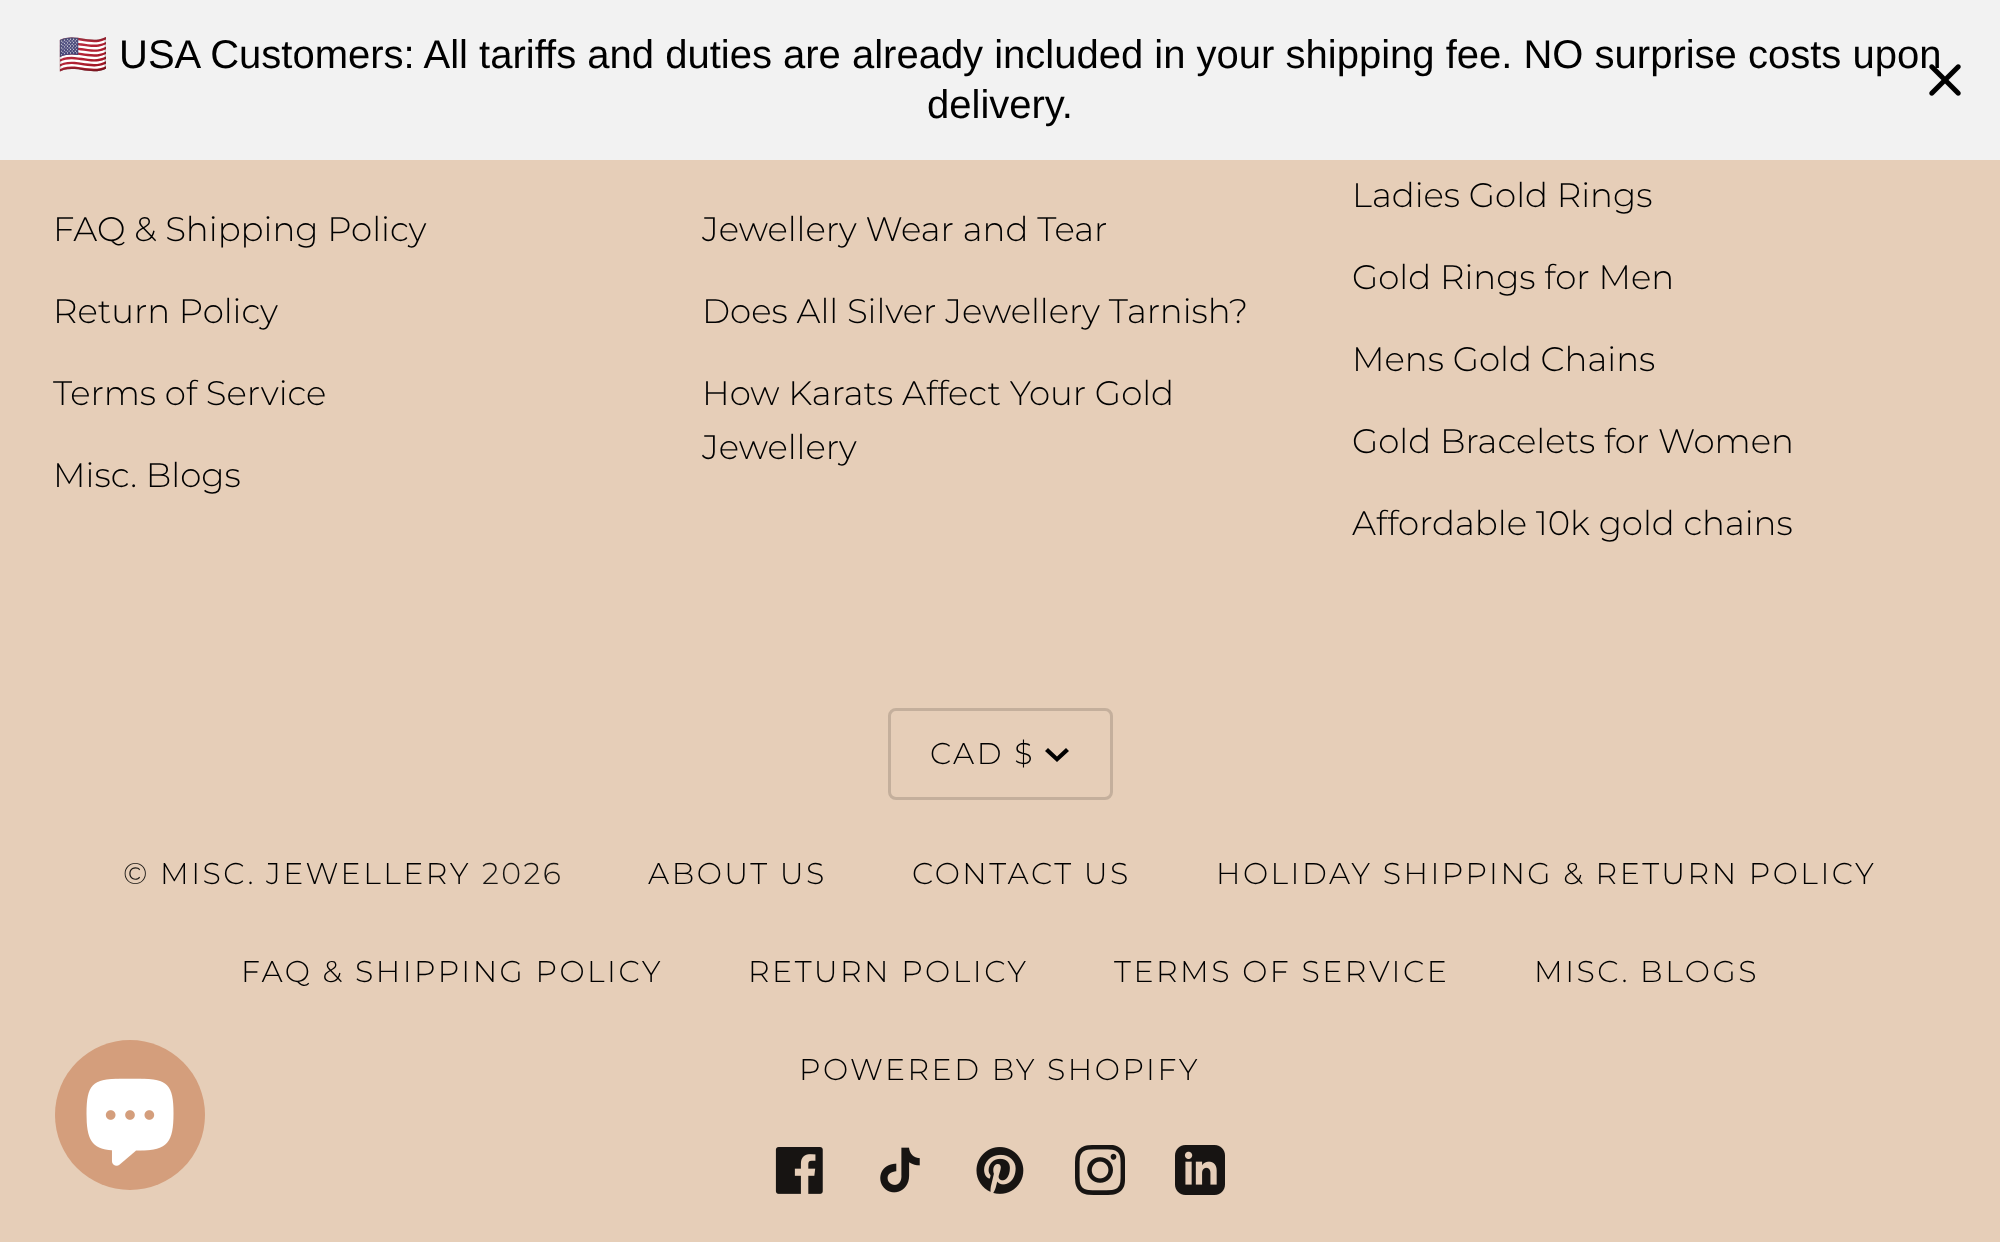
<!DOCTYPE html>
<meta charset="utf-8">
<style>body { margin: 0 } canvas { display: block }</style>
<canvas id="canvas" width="2000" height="1242"></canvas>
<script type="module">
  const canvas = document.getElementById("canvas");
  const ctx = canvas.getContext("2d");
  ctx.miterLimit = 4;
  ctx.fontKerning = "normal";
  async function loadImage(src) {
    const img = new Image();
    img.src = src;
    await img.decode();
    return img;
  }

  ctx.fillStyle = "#e6ceb8";
  ctx.fillRect(0, 0, 2000, 1242);
  ctx.fillStyle = "#f2f2f2";
  ctx.fillRect(0, 0, 2000, 160);
  ctx.font = "40px Noto Color Emoji";
  ctx.fillStyle = "#000000";
  ctx.fillText("🇺🇸", 58, 68);
  ctx.font = "40px Liberation Sans";
  ctx.fillText("USA Customers: All tariffs and duties are already included in your shipping fee. NO surprise costs upon", 119, 68);
  ctx.fillText("delivery.", 927, 118);
  ctx.drawImage(await loadImage("img1.png"), 1929, 64, 32, 32);
  ctx.font = "300 34px Montserrat";
  ctx.fillText("FAQ & Shipping Policy", 53, 241);
  ctx.fillText("Return Policy", 53, 323);
  ctx.fillText("Terms of Service", 53, 405);
  ctx.fillText("Misc. Blogs", 53, 487);
  ctx.fillText("Jewellery Wear and Tear", 702, 241);
  ctx.fillText("Does All Silver Jewellery Tarnish?", 702, 323);
  ctx.fillText("How Karats Affect Your Gold", 702, 405);
  ctx.fillText("Jewellery", 702, 459);
  ctx.fillText("Ladies Gold Rings", 1352, 207);
  ctx.fillText("Gold Rings for Men", 1352, 289);
  ctx.fillText("Mens Gold Chains", 1352, 371);
  ctx.fillText("Gold Bracelets for Women", 1352, 453);
  ctx.fillText("Affordable 10k gold chains", 1352, 535);
  ctx.beginPath();
  ctx.roundRect(889.5, 709.5, 222, 89, 6.5);
  ctx.strokeStyle = "#c4af9c";
  ctx.lineWidth = 3;
  ctx.stroke();
  ctx.letterSpacing = "2.5px";
  ctx.font = "300 30px Montserrat";
  ctx.fillText("CAD $", 930, 764);
  ctx.beginPath();
  ctx.moveTo(1045, 751);
  ctx.lineTo(1048, 748);
  ctx.lineTo(1057, 756.5);
  ctx.lineTo(1066, 748);
  ctx.lineTo(1069, 751);
  ctx.lineTo(1057, 762);
  ctx.closePath();
  ctx.fill("evenodd");
  ctx.fillStyle = "#171512";
  ctx.fillText("©", 123, 884);
  ctx.fillStyle = "#000000";
  ctx.fillText("MISC. JEWELLERY", 160, 884);
  ctx.fillStyle = "#171512";
  ctx.fillText("2026", 482, 884);
  ctx.fillStyle = "#000000";
  ctx.fillText("ABOUT US", 648, 884);
  ctx.fillText("CONTACT US", 912, 884);
  ctx.fillText("HOLIDAY SHIPPING & RETURN POLICY", 1216, 884);
  ctx.fillText("FAQ & SHIPPING POLICY", 241, 982);
  ctx.fillText("RETURN POLICY", 748, 982);
  ctx.fillText("TERMS OF SERVICE", 1114, 982);
  ctx.fillText("MISC. BLOGS", 1534, 982);
  ctx.fillText("POWERED BY SHOPIFY", 799, 1080);
  ctx.drawImage(await loadImage("img2.png"), 775, 1147, 48, 47);
  ctx.drawImage(await loadImage("img3.png"), 880, 1147, 40, 46);
  ctx.drawImage(await loadImage("img4.png"), 976, 1147, 48, 47);
  ctx.drawImage(await loadImage("img5.png"), 1075, 1145, 50, 50);
  ctx.drawImage(await loadImage("img6.png"), 1175, 1145, 50, 50);
  ctx.fillStyle = "#d49e7c";
  ctx.beginPath();
  ctx.arc(130, 1115, 75, 0, Math.PI * 2);
  ctx.fill();
  ctx.drawImage(await loadImage("img7.png"), 86, 1078, 88, 88);
</script>
